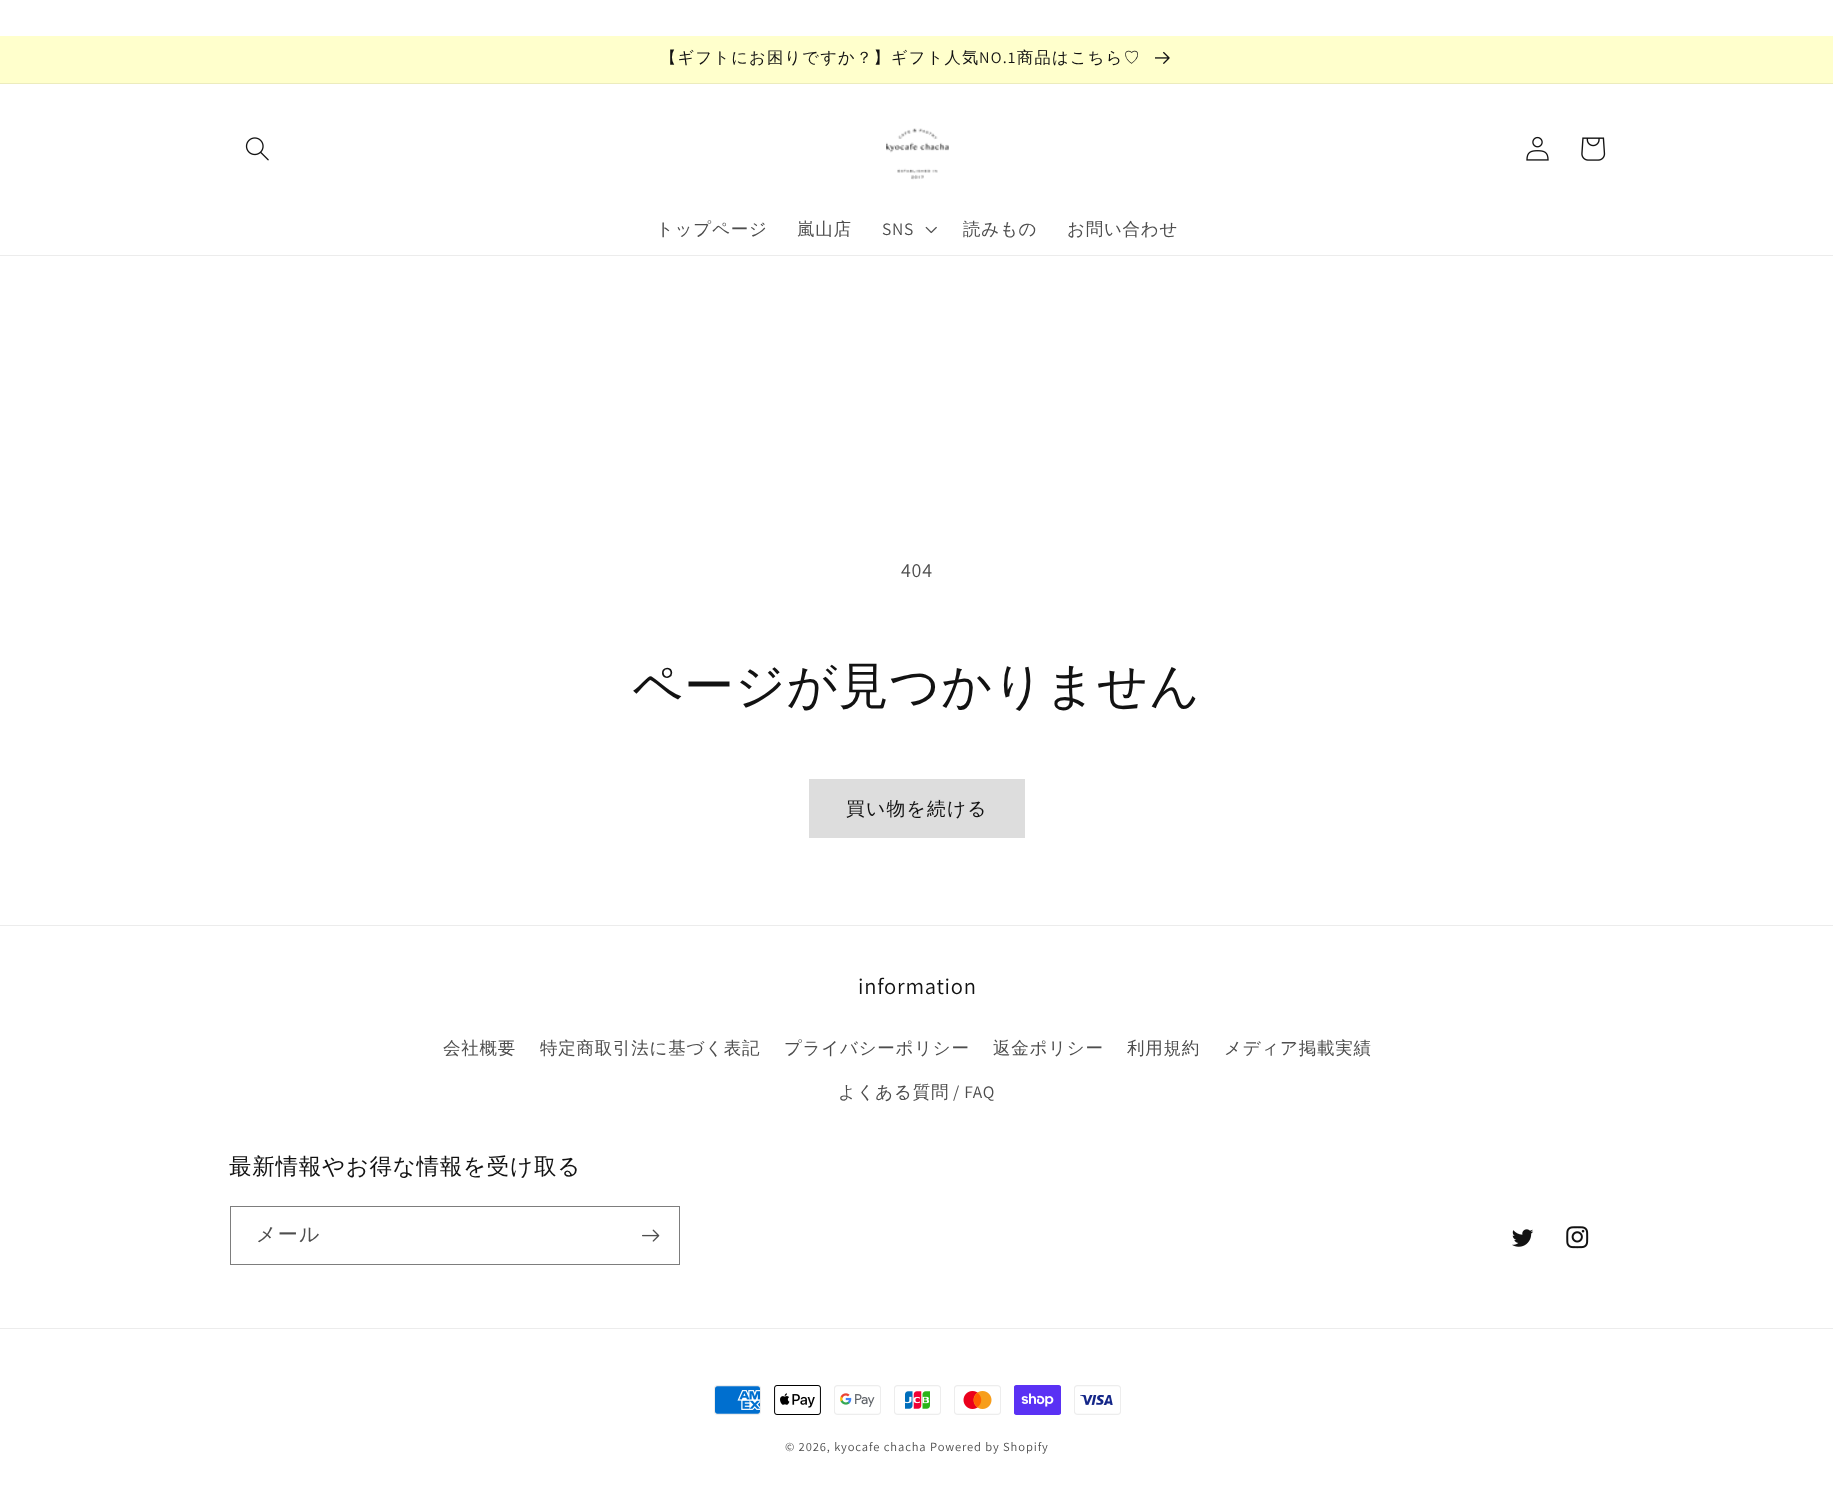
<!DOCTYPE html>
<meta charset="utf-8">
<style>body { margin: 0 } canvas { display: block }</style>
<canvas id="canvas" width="1833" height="1503"></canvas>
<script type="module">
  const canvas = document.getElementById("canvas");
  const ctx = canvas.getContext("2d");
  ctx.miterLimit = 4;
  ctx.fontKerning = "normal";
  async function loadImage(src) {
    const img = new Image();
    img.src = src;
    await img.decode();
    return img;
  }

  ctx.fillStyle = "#ffffff";
  ctx.fillRect(0, 0, 1833, 1503);
  ctx.fillStyle = "#ffffcc";
  ctx.fillRect(0, 36, 1833, 47);
  ctx.fillStyle = "#ececbd";
  ctx.fillRect(0, 83, 1833, 1);
  ctx.letterSpacing = "1.25px";
  ctx.font = "500 16.25px WenQuanYi Zen Hei";
  ctx.fillStyle = "#121212";
  ctx.fillText("【ギフトにお困りですか？】ギフト人気", 660, 63);
  ctx.font = "16.25px Assistant";
  ctx.fillText("NO.1", 979, 63);
  ctx.font = "500 16.25px WenQuanYi Zen Hei";
  ctx.fillText("商品はこちら♡", 1017, 63);
  ctx.drawImage(await loadImage("img1.png"), 1155, 51, 15, 13);
  ctx.fillStyle = "#ececec";
  ctx.fillRect(0, 255, 1833, 1);
  ctx.drawImage(await loadImage("img2.png"), 245, 137, 24, 24);
  ctx.drawImage(await loadImage("img3.png"), 886, 128, 63, 52);
  ctx.drawImage(await loadImage("img4.png"), 1526, 136, 23, 25);
  ctx.drawImage(await loadImage("img5.png"), 1581, 137, 25, 24);
  ctx.letterSpacing = "0.75px";
  ctx.font = "500 17.5px WenQuanYi Zen Hei";
  ctx.fillStyle = "#4d4d4d";
  ctx.fillText("トップページ", 656, 235);
  ctx.fillText("嵐山店", 797, 235);
  ctx.font = "17.5px Assistant";
  ctx.fillText("SNS", 882, 235);
  ctx.drawImage(await loadImage("img6.png"), 925, 226, 12, 8);
  ctx.font = "500 17.5px WenQuanYi Zen Hei";
  ctx.fillText("読みもの", 963, 235);
  ctx.fillText("お問い合わせ", 1067, 235);
  ctx.font = "20px Assistant";
  ctx.fillText("404", 901, 577);
  ctx.font = "500 50px WenQuanYi Zen Hei";
  ctx.fillStyle = "#121212";
  ctx.fillText("ページが見つかりません", 632, 703);
  ctx.fillStyle = "#dddddd";
  ctx.fillRect(809, 779, 216, 59);
  ctx.letterSpacing = "1.25px";
  ctx.font = "500 18.75px WenQuanYi Zen Hei";
  ctx.fillStyle = "#121212";
  ctx.fillText("買い物を続ける", 846, 815);
  ctx.fillStyle = "#ececec";
  ctx.fillRect(0, 925, 1833, 1);
  ctx.letterSpacing = "0.75px";
  ctx.font = "22.5px Assistant";
  ctx.fillStyle = "#121212";
  ctx.fillText("information", 858, 994);
  ctx.font = "500 17.5px WenQuanYi Zen Hei";
  ctx.fillStyle = "#4d4d4d";
  ctx.fillText("会社概要", 443, 1054);
  ctx.fillText("特定商取引法に基づく表記", 540, 1054);
  ctx.fillText("プライバシーポリシー", 784, 1054);
  ctx.fillText("返金ポリシー", 993, 1054);
  ctx.fillText("利用規約", 1127, 1054);
  ctx.fillText("メディア掲載実績", 1224, 1054);
  ctx.fillText("よくある質問", 838, 1098);
  ctx.font = "17.5px Assistant";
  ctx.fillText("/ FAQ", 953, 1098);
  ctx.font = "500 22.5px WenQuanYi Zen Hei";
  ctx.fillStyle = "#121212";
  ctx.fillText("最新情報やお得な情報を受け取る", 229, 1174);
  ctx.strokeStyle = "#7d7d7d";
  ctx.strokeRect(230.5, 1206.5, 449, 58);
  ctx.letterSpacing = "1.25px";
  ctx.font = "500 20px WenQuanYi Zen Hei";
  ctx.fillStyle = "#4d4d4d";
  ctx.fillText("メール", 256, 1241);
  ctx.drawImage(await loadImage("img7.png"), 642, 1229, 18, 13);
  ctx.drawImage(await loadImage("img8.png"), 1512, 1229, 22, 18);
  ctx.drawImage(await loadImage("img9.png"), 1566, 1226, 23, 23);
  ctx.fillStyle = "#ececec";
  ctx.fillRect(0, 1328, 1833, 1);
  ctx.drawImage(await loadImage("img10.png"), 714, 1385, 47, 30);
  ctx.drawImage(await loadImage("img11.png"), 774, 1385, 47, 30);
  ctx.drawImage(await loadImage("img12.png"), 834, 1385, 47, 30);
  ctx.drawImage(await loadImage("img13.png"), 894, 1385, 47, 30);
  ctx.drawImage(await loadImage("img14.png"), 954, 1385, 47, 30);
  ctx.drawImage(await loadImage("img15.png"), 1014, 1385, 47, 30);
  ctx.drawImage(await loadImage("img16.png"), 1074, 1385, 47, 30);
  ctx.letterSpacing = "0.9px";
  ctx.font = "12.5px Assistant";
  ctx.fillStyle = "#4d4d4d";
  ctx.fillText("© 2026, kyocafe chacha", 785, 1451);
  ctx.fillText("Powered by Shopify", 930, 1451);
</script>
